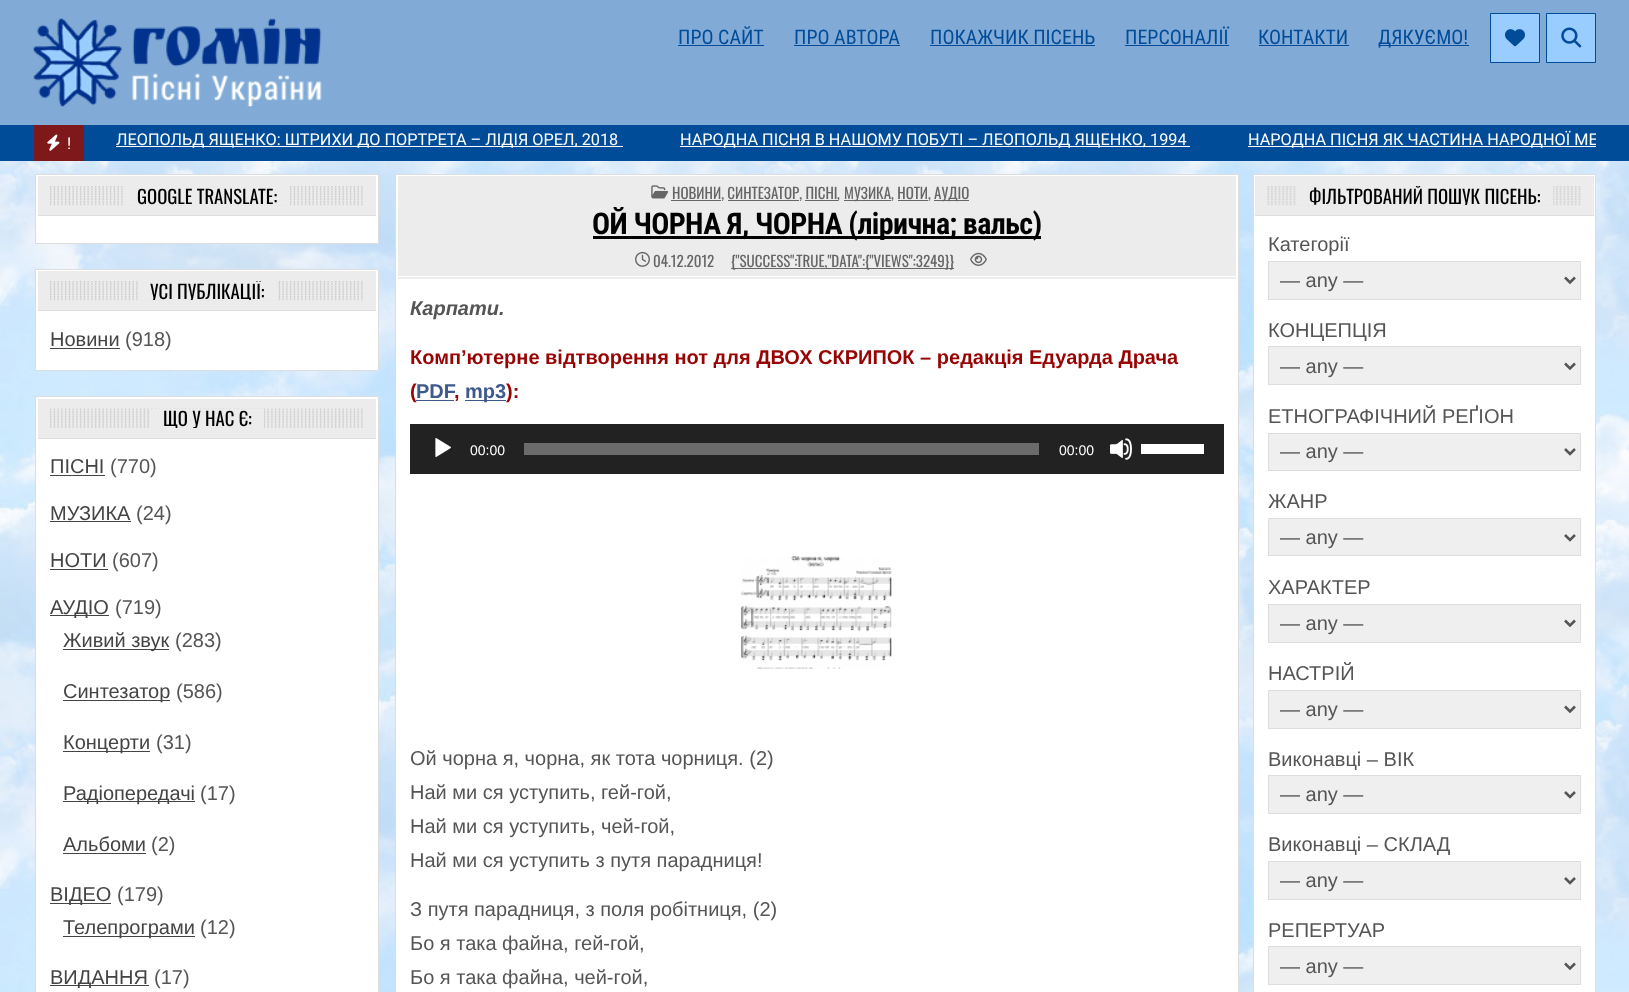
<!DOCTYPE html>
<meta charset="utf-8">
<style>body { margin: 0 } canvas { display: block }</style>
<canvas id="canvas" width="1629" height="992"></canvas>
<script type="module">
  const canvas = document.getElementById("canvas");
  const ctx = canvas.getContext("2d");
  ctx.miterLimit = 4;
  ctx.fontKerning = "normal";
  async function loadImage(src) {
    const img = new Image();
    img.src = src;
    await img.decode();
    return img;
  }

  ctx.fillStyle = "#ffffff";
  ctx.fillRect(0, 0, 1629, 992);
  ctx.drawImage(await loadImage("img1.png"), 0, 161, 1629, 831);
  ctx.fillStyle = "#81abd6";
  ctx.fillRect(0, 0, 1629, 125);
  ctx.drawImage(await loadImage("img2.png"), 33, 18, 289, 89);
  ctx.font = "20px Roboto Condensed";
  ctx.fillStyle = "#004c99";
  ctx.fillText("ПРО САЙТ", 678, 44);
  ctx.fillRect(678, 45, 86, 1);
  ctx.fillText("ПРО АВТОРА", 794, 44);
  ctx.fillRect(794, 45, 106, 1);
  ctx.fillText("ПОКАЖЧИК ПІСЕНЬ", 930, 44);
  ctx.fillRect(930, 45, 165, 1);
  ctx.fillText("ПЕРСОНАЛІЇ", 1125, 44);
  ctx.fillRect(1125, 45, 104, 1);
  ctx.fillText("КОНТАКТИ", 1258, 44);
  ctx.fillRect(1259, 45, 90, 1);
  ctx.fillRect(1379, 45, 90, 1);
  ctx.fillText("ДЯКУЄМО!", 1378, 44);
  ctx.fillStyle = "#99ccff";
  ctx.beginPath();
  ctx.rect(1490.5, 13.5, 49, 49);
  ctx.fill();
  ctx.strokeStyle = "#004c99";
  ctx.stroke();
  ctx.drawImage(await loadImage("img3.png"), 1505, 29, 20, 18);
  ctx.beginPath();
  ctx.rect(1546.5, 13.5, 49, 49);
  ctx.fill();
  ctx.stroke();
  ctx.drawImage(await loadImage("img4.png"), 1561, 27, 21, 21);
  ctx.fillStyle = "#004c99";
  ctx.fillRect(0, 125, 1629, 36);
  ctx.fillStyle = "#7f181b";
  ctx.fillRect(34, 125, 50, 36);
  ctx.drawImage(await loadImage("img5.png"), 47, 134, 13, 17);
  ctx.font = "16.25px Roboto";
  ctx.fillStyle = "#ffffff";
  ctx.fillText("!", 67, 149);
  ctx.fillRect(116, 146, 507, 1);
  ctx.fillText("ЛЕОПОЛЬД ЯЩЕНКО: ШТРИХИ ДО ПОРТРЕТА – ЛІДІЯ ОРЕЛ, 2018", 116, 145);
  ctx.fillRect(680, 146, 510, 1);
  ctx.fillText("НАРОДНА ПІСНЯ В НАШОМУ ПОБУТІ – ЛЕОПОЛЬД ЯЩЕНКО, 1994", 680, 145);
  ctx.fillRect(1248, 146, 348, 1);
  ctx.save();
  ctx.beginPath();
  ctx.rect(84, 125, 1512, 29);
  ctx.clip();
  ctx.fillText("НАРОДНА ПІСНЯ ЯК ЧАСТИНА НАРОДНОЇ МЕ", 1248, 145);
  ctx.restore();
  ctx.beginPath();
  ctx.rect(35.5, 174.5, 343, 69);
  ctx.fill();
  ctx.strokeStyle = "#dddddd";
  ctx.stroke();
  ctx.fillStyle = "#ececec";
  ctx.fillRect(38, 176, 338, 39);
  ctx.fillStyle = "#dddddd";
  ctx.fillRect(38, 215, 338, 1);
  ctx.drawImage(await loadImage("img6.png"), 50, 186, 313, 20);
  ctx.fillStyle = "#ececec";
  ctx.fillRect(125, 186, 165, 19);
  ctx.font = "18.75px Oswald";
  ctx.fillStyle = "#000000";
  ctx.fillText("GOOGLE TRANSLATE:", 137, 204);
  ctx.fillStyle = "#ffffff";
  ctx.beginPath();
  ctx.rect(35.5, 269.5, 343, 101);
  ctx.fill();
  ctx.stroke();
  ctx.fillStyle = "#ececec";
  ctx.fillRect(38, 271, 338, 39);
  ctx.fillStyle = "#dddddd";
  ctx.fillRect(38, 310, 338, 1);
  ctx.drawImage(await loadImage("img6.png"), 50, 281, 313, 20);
  ctx.fillStyle = "#ececec";
  ctx.fillRect(139, 281, 138, 19);
  ctx.save();
  ctx.beginPath();
  ctx.rect(50, 281, 314, 19);
  ctx.clip();
  ctx.fillStyle = "#000000";
  ctx.fillText("УСІ ПУБЛІКАЦІЇ:", 150, 299);
  ctx.restore();
  ctx.font = "20px Liberation Sans";
  ctx.fillStyle = "#444444";
  ctx.fillText("Новини", 50, 346);
  ctx.fillRect(50, 348, 70, 1);
  ctx.fillStyle = "#555555";
  ctx.fillText("(918)", 125, 346);
  ctx.fillStyle = "#ffffff";
  ctx.beginPath();
  ctx.rect(35.5, 396.5, 343, 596);
  ctx.fill();
  ctx.stroke();
  ctx.fillStyle = "#ececec";
  ctx.fillRect(38, 399, 338, 39);
  ctx.fillStyle = "#dddddd";
  ctx.fillRect(38, 438, 338, 1);
  ctx.drawImage(await loadImage("img7.png"), 50, 408, 313, 20);
  ctx.fillStyle = "#ececec";
  ctx.fillRect(151, 409, 113, 19);
  ctx.save();
  ctx.beginPath();
  ctx.rect(50, 409, 314, 19);
  ctx.clip();
  ctx.font = "18.75px Oswald";
  ctx.fillStyle = "#000000";
  ctx.fillText("ЩО У НАС Є:", 163, 426);
  ctx.restore();
  ctx.fillStyle = "#444444";
  ctx.fillText("ПІСНІ", 50, 473);
  ctx.fillRect(50, 475, 55, 1);
  ctx.fillStyle = "#555555";
  ctx.fillText("(770)", 110, 473);
  ctx.fillStyle = "#444444";
  ctx.fillText("МУЗИКА", 50, 520);
  ctx.fillRect(50, 521, 81, 1);
  ctx.fillStyle = "#555555";
  ctx.fillText("(24)", 136, 520);
  ctx.fillStyle = "#444444";
  ctx.fillText("НОТИ", 50, 567);
  ctx.fillRect(50, 569, 58, 1);
  ctx.fillStyle = "#555555";
  ctx.fillText("(607)", 112, 567);
  ctx.fillStyle = "#444444";
  ctx.fillRect(50, 615, 59, 1);
  ctx.fillText("АУДІО", 50, 614);
  ctx.fillStyle = "#555555";
  ctx.fillText("(719)", 115, 614);
  ctx.fillStyle = "#444444";
  ctx.fillRect(63, 649, 106, 1);
  ctx.fillText("Живий звук", 63, 647);
  ctx.fillStyle = "#555555";
  ctx.fillText("(283)", 175, 647);
  ctx.fillStyle = "#444444";
  ctx.fillRect(63, 700, 107, 1);
  ctx.fillText("Синтезатор", 63, 698);
  ctx.fillStyle = "#555555";
  ctx.fillText("(586)", 176, 698);
  ctx.fillStyle = "#444444";
  ctx.fillRect(63, 751, 87, 1);
  ctx.fillText("Концерти", 63, 749);
  ctx.fillStyle = "#555555";
  ctx.fillText("(31)", 156, 749);
  ctx.fillStyle = "#444444";
  ctx.fillRect(63, 801, 132, 1);
  ctx.fillText("Радіопередачі", 63, 800);
  ctx.fillStyle = "#555555";
  ctx.fillText("(17)", 200, 800);
  ctx.fillStyle = "#444444";
  ctx.fillText("Альбоми", 63, 851);
  ctx.fillRect(63, 853, 83, 1);
  ctx.fillStyle = "#555555";
  ctx.fillText("(2)", 151, 851);
  ctx.fillStyle = "#444444";
  ctx.fillRect(50, 903, 61, 1);
  ctx.fillText("ВІДЕО", 50, 901);
  ctx.fillStyle = "#555555";
  ctx.fillText("(179)", 117, 901);
  ctx.fillStyle = "#444444";
  ctx.fillRect(63, 936, 132, 1);
  ctx.fillText("Телепрограми", 63, 934);
  ctx.fillStyle = "#555555";
  ctx.fillText("(12)", 200, 934);
  ctx.fillStyle = "#444444";
  ctx.fillRect(50, 985, 99, 1);
  ctx.fillText("ВИДАННЯ", 50, 984);
  ctx.fillStyle = "#555555";
  ctx.fillText("(17)", 154, 984);
  ctx.fillStyle = "#ffffff";
  ctx.beginPath();
  ctx.rect(395.5, 174.5, 843, 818);
  ctx.fill();
  ctx.stroke();
  ctx.fillStyle = "#ececec";
  ctx.fillRect(398, 176, 838, 102);
  ctx.fillStyle = "#eeeeee";
  ctx.fillRect(398, 278, 838, 1);
  ctx.fillStyle = "#ffffff";
  ctx.fillRect(398, 276, 838, 1);
  ctx.drawImage(await loadImage("img8.png"), 651, 185, 18, 14);
  ctx.fillStyle = "#666666";
  ctx.fillRect(671, 200, 50, 1);
  ctx.font = "15px Oswald";
  ctx.fillText("НОВИНИ, СИНТЕЗАТОР, ПІСНІ", 672, 199);
  ctx.fillRect(805, 200, 33, 1);
  ctx.fillText(",", 837, 199);
  ctx.fillRect(844, 200, 47, 1);
  ctx.fillText("МУЗИКА, НОТИ,", 844, 199);
  ctx.fillRect(934, 200, 35, 1);
  ctx.fillText("АУДІО", 934, 199);
  ctx.fillRect(728, 200, 71, 1);
  ctx.fillRect(898, 200, 30, 1);
  ctx.fillStyle = "#000000";
  ctx.fillRect(593, 236, 448, 3);
  ctx.letterSpacing = "-0.6px";
  ctx.font = "bold 30px Roboto Condensed";
  ctx.fillText("ОЙ ЧОРНА Я, ЧОРНА (лірична; вальс)", 592, 234);
  ctx.drawImage(await loadImage("img9.png"), 635, 251, 15, 16);
  ctx.letterSpacing = "0px";
  ctx.font = "15px Oswald";
  ctx.fillStyle = "#666666";
  ctx.fillText("04.12.2012", 653, 267);
  ctx.fillRect(731, 268, 223, 1);
  ctx.fillText("{\"SUCCESS\":TRUE,\"DATA\":{\"VIEWS\":3249}}", 731, 267);
  ctx.drawImage(await loadImage("img10.png"), 970, 252, 17, 14);
  ctx.font = "italic bold 20px Liberation Sans";
  ctx.fillStyle = "#555555";
  ctx.fillText("Карпати.", 410, 315);
  ctx.font = "bold 20px Liberation Sans";
  ctx.fillStyle = "#980404";
  ctx.fillText("Комп’ютерне відтворення нот для ДВОХ СКРИПОК – редакція Едуарда Драча", 410, 364);
  ctx.fillText("(", 410, 398);
  ctx.fillStyle = "#3e598c";
  ctx.fillText("PDF", 416, 398);
  ctx.fillStyle = "#980404";
  ctx.fillText(",", 454, 398);
  ctx.fillStyle = "#3e598c";
  ctx.fillRect(416, 400, 38, 1);
  ctx.fillRect(465, 400, 41, 1);
  ctx.fillText("mp3", 465, 398);
  ctx.fillStyle = "#980404";
  ctx.fillText("):", 506, 398);
  ctx.fillStyle = "#222222";
  ctx.fillRect(410, 424, 814, 50);
  ctx.drawImage(await loadImage("img11.png"), 435, 438, 16, 19);
  ctx.font = "14px Liberation Sans";
  ctx.fillStyle = "#ffffff";
  ctx.fillText("00:00", 470, 455);
  ctx.fillStyle = "#6b6b6b";
  ctx.fillRect(524, 443, 515, 12);
  ctx.fillStyle = "#ffffff";
  ctx.fillText("00:00", 1059, 455);
  ctx.drawImage(await loadImage("img12.png"), 1110, 438, 22, 22);
  ctx.fillRect(1141, 444, 63, 10);
  ctx.drawImage(await loadImage("img13.png"), 741, 556, 151, 113);
  ctx.font = "20px Liberation Sans";
  ctx.fillStyle = "#555555";
  ctx.fillText("Ой чорна я, чорна, як тота чорниця. (2)", 410, 765);
  ctx.fillText("Най ми ся уступить, гей-гой,", 410, 799);
  ctx.fillText("Най ми ся уступить, чей-гой,", 410, 833);
  ctx.fillText("Най ми ся уступить з путя парадниця!", 410, 867);
  ctx.fillText("З путя парадниця, з поля робітниця, (2)", 410, 916);
  ctx.fillText("Бо я така файна, гей-гой,", 410, 950);
  ctx.fillText("Бо я така файна, чей-гой,", 410, 984);
  ctx.fillStyle = "#ffffff";
  ctx.beginPath();
  ctx.rect(1253.5, 174.5, 342, 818);
  ctx.fill();
  ctx.stroke();
  ctx.fillStyle = "#ececec";
  ctx.fillRect(1255, 176, 339, 39);
  ctx.fillStyle = "#dddddd";
  ctx.fillRect(1255, 215, 339, 1);
  ctx.drawImage(await loadImage("img14.png"), 1267, 186, 314, 20);
  ctx.fillStyle = "#ececec";
  ctx.fillRect(1297, 186, 256, 19);
  ctx.save();
  ctx.beginPath();
  ctx.rect(1268, 186, 313, 19);
  ctx.clip();
  ctx.font = "18.75px Oswald";
  ctx.fillStyle = "#000000";
  ctx.fillText("ФІЛЬТРОВАНИЙ ПОШУК ПІСЕНЬ:", 1309, 204);
  ctx.restore();
  ctx.fillStyle = "#555555";
  ctx.fillText("Категорії", 1268, 251);
  ctx.fillStyle = "#efefef";
  ctx.beginPath();
  ctx.rect(1268.5, 261.5, 312, 38);
  ctx.fill();
  ctx.stroke();
  ctx.beginPath();
  ctx.moveTo(1565, 277.5);
  ctx.lineTo(1570, 282.5);
  ctx.lineTo(1575, 277.5);
  ctx.strokeStyle = "#555555";
  ctx.lineWidth = 2.5;
  ctx.stroke();
  ctx.fillStyle = "#555555";
  ctx.fillText("— any —", 1280, 287);
  ctx.fillText("КОНЦЕПЦІЯ", 1268, 337);
  ctx.fillStyle = "#efefef";
  ctx.beginPath();
  ctx.rect(1268.5, 346.5, 312, 38);
  ctx.fill();
  ctx.strokeStyle = "#dddddd";
  ctx.lineWidth = 1;
  ctx.stroke();
  ctx.beginPath();
  ctx.moveTo(1565, 363.5);
  ctx.lineTo(1570, 368.5);
  ctx.lineTo(1575, 363.5);
  ctx.strokeStyle = "#555555";
  ctx.lineWidth = 2.5;
  ctx.stroke();
  ctx.fillStyle = "#555555";
  ctx.fillText("— any —", 1280, 373);
  ctx.fillText("ЕТНОГРАФІЧНИЙ РЕҐІОН", 1268, 423);
  ctx.fillStyle = "#efefef";
  ctx.beginPath();
  ctx.rect(1268.5, 433.5, 312, 37);
  ctx.fill();
  ctx.strokeStyle = "#dddddd";
  ctx.lineWidth = 1;
  ctx.stroke();
  ctx.beginPath();
  ctx.moveTo(1565, 449);
  ctx.lineTo(1570, 454);
  ctx.lineTo(1575, 449);
  ctx.strokeStyle = "#555555";
  ctx.lineWidth = 2.5;
  ctx.stroke();
  ctx.fillStyle = "#555555";
  ctx.fillText("— any —", 1280, 458);
  ctx.fillText("ЖАНР", 1268, 508);
  ctx.fillStyle = "#efefef";
  ctx.beginPath();
  ctx.rect(1268.5, 518.5, 312, 37);
  ctx.fill();
  ctx.strokeStyle = "#dddddd";
  ctx.lineWidth = 1;
  ctx.stroke();
  ctx.beginPath();
  ctx.moveTo(1565, 535);
  ctx.lineTo(1570, 540);
  ctx.lineTo(1575, 535);
  ctx.strokeStyle = "#555555";
  ctx.lineWidth = 2.5;
  ctx.stroke();
  ctx.fillStyle = "#555555";
  ctx.fillText("— any —", 1280, 544);
  ctx.fillText("ХАРАКТЕР", 1268, 594);
  ctx.fillStyle = "#efefef";
  ctx.beginPath();
  ctx.rect(1268.5, 604.5, 312, 38);
  ctx.fill();
  ctx.strokeStyle = "#dddddd";
  ctx.lineWidth = 1;
  ctx.stroke();
  ctx.beginPath();
  ctx.moveTo(1565, 620.5);
  ctx.lineTo(1570, 625.5);
  ctx.lineTo(1575, 620.5);
  ctx.strokeStyle = "#555555";
  ctx.lineWidth = 2.5;
  ctx.stroke();
  ctx.fillStyle = "#555555";
  ctx.fillText("— any —", 1280, 630);
  ctx.fillText("НАСТРІЙ", 1268, 680);
  ctx.fillStyle = "#efefef";
  ctx.beginPath();
  ctx.rect(1268.5, 690.5, 312, 38);
  ctx.fill();
  ctx.strokeStyle = "#dddddd";
  ctx.lineWidth = 1;
  ctx.stroke();
  ctx.beginPath();
  ctx.moveTo(1565, 706.5);
  ctx.lineTo(1570, 711.5);
  ctx.lineTo(1575, 706.5);
  ctx.strokeStyle = "#555555";
  ctx.lineWidth = 2.5;
  ctx.stroke();
  ctx.fillStyle = "#555555";
  ctx.fillText("— any —", 1280, 716);
  ctx.fillText("Виконавці – ВІК", 1268, 766);
  ctx.fillStyle = "#efefef";
  ctx.beginPath();
  ctx.rect(1268.5, 775.5, 312, 38);
  ctx.fill();
  ctx.strokeStyle = "#dddddd";
  ctx.lineWidth = 1;
  ctx.stroke();
  ctx.beginPath();
  ctx.moveTo(1565, 792);
  ctx.lineTo(1570, 797);
  ctx.lineTo(1575, 792);
  ctx.strokeStyle = "#555555";
  ctx.lineWidth = 2.5;
  ctx.stroke();
  ctx.fillStyle = "#555555";
  ctx.fillText("— any —", 1280, 801);
  ctx.fillText("Виконавці – СКЛАД", 1268, 851);
  ctx.fillStyle = "#efefef";
  ctx.beginPath();
  ctx.rect(1268.5, 861.5, 312, 38);
  ctx.fill();
  ctx.strokeStyle = "#dddddd";
  ctx.lineWidth = 1;
  ctx.stroke();
  ctx.beginPath();
  ctx.moveTo(1565, 878);
  ctx.lineTo(1570, 883);
  ctx.lineTo(1575, 878);
  ctx.strokeStyle = "#555555";
  ctx.lineWidth = 2.5;
  ctx.stroke();
  ctx.fillStyle = "#555555";
  ctx.fillText("— any —", 1280, 887);
  ctx.fillText("РЕПЕРТУАР", 1268, 937);
  ctx.fillStyle = "#efefef";
  ctx.beginPath();
  ctx.rect(1268.5, 946.5, 312, 38);
  ctx.fill();
  ctx.strokeStyle = "#dddddd";
  ctx.lineWidth = 1;
  ctx.stroke();
  ctx.beginPath();
  ctx.moveTo(1565, 963.5);
  ctx.lineTo(1570, 968.5);
  ctx.lineTo(1575, 963.5);
  ctx.strokeStyle = "#555555";
  ctx.lineWidth = 2.5;
  ctx.stroke();
  ctx.fillStyle = "#555555";
  ctx.fillText("— any —", 1280, 973);
</script>
